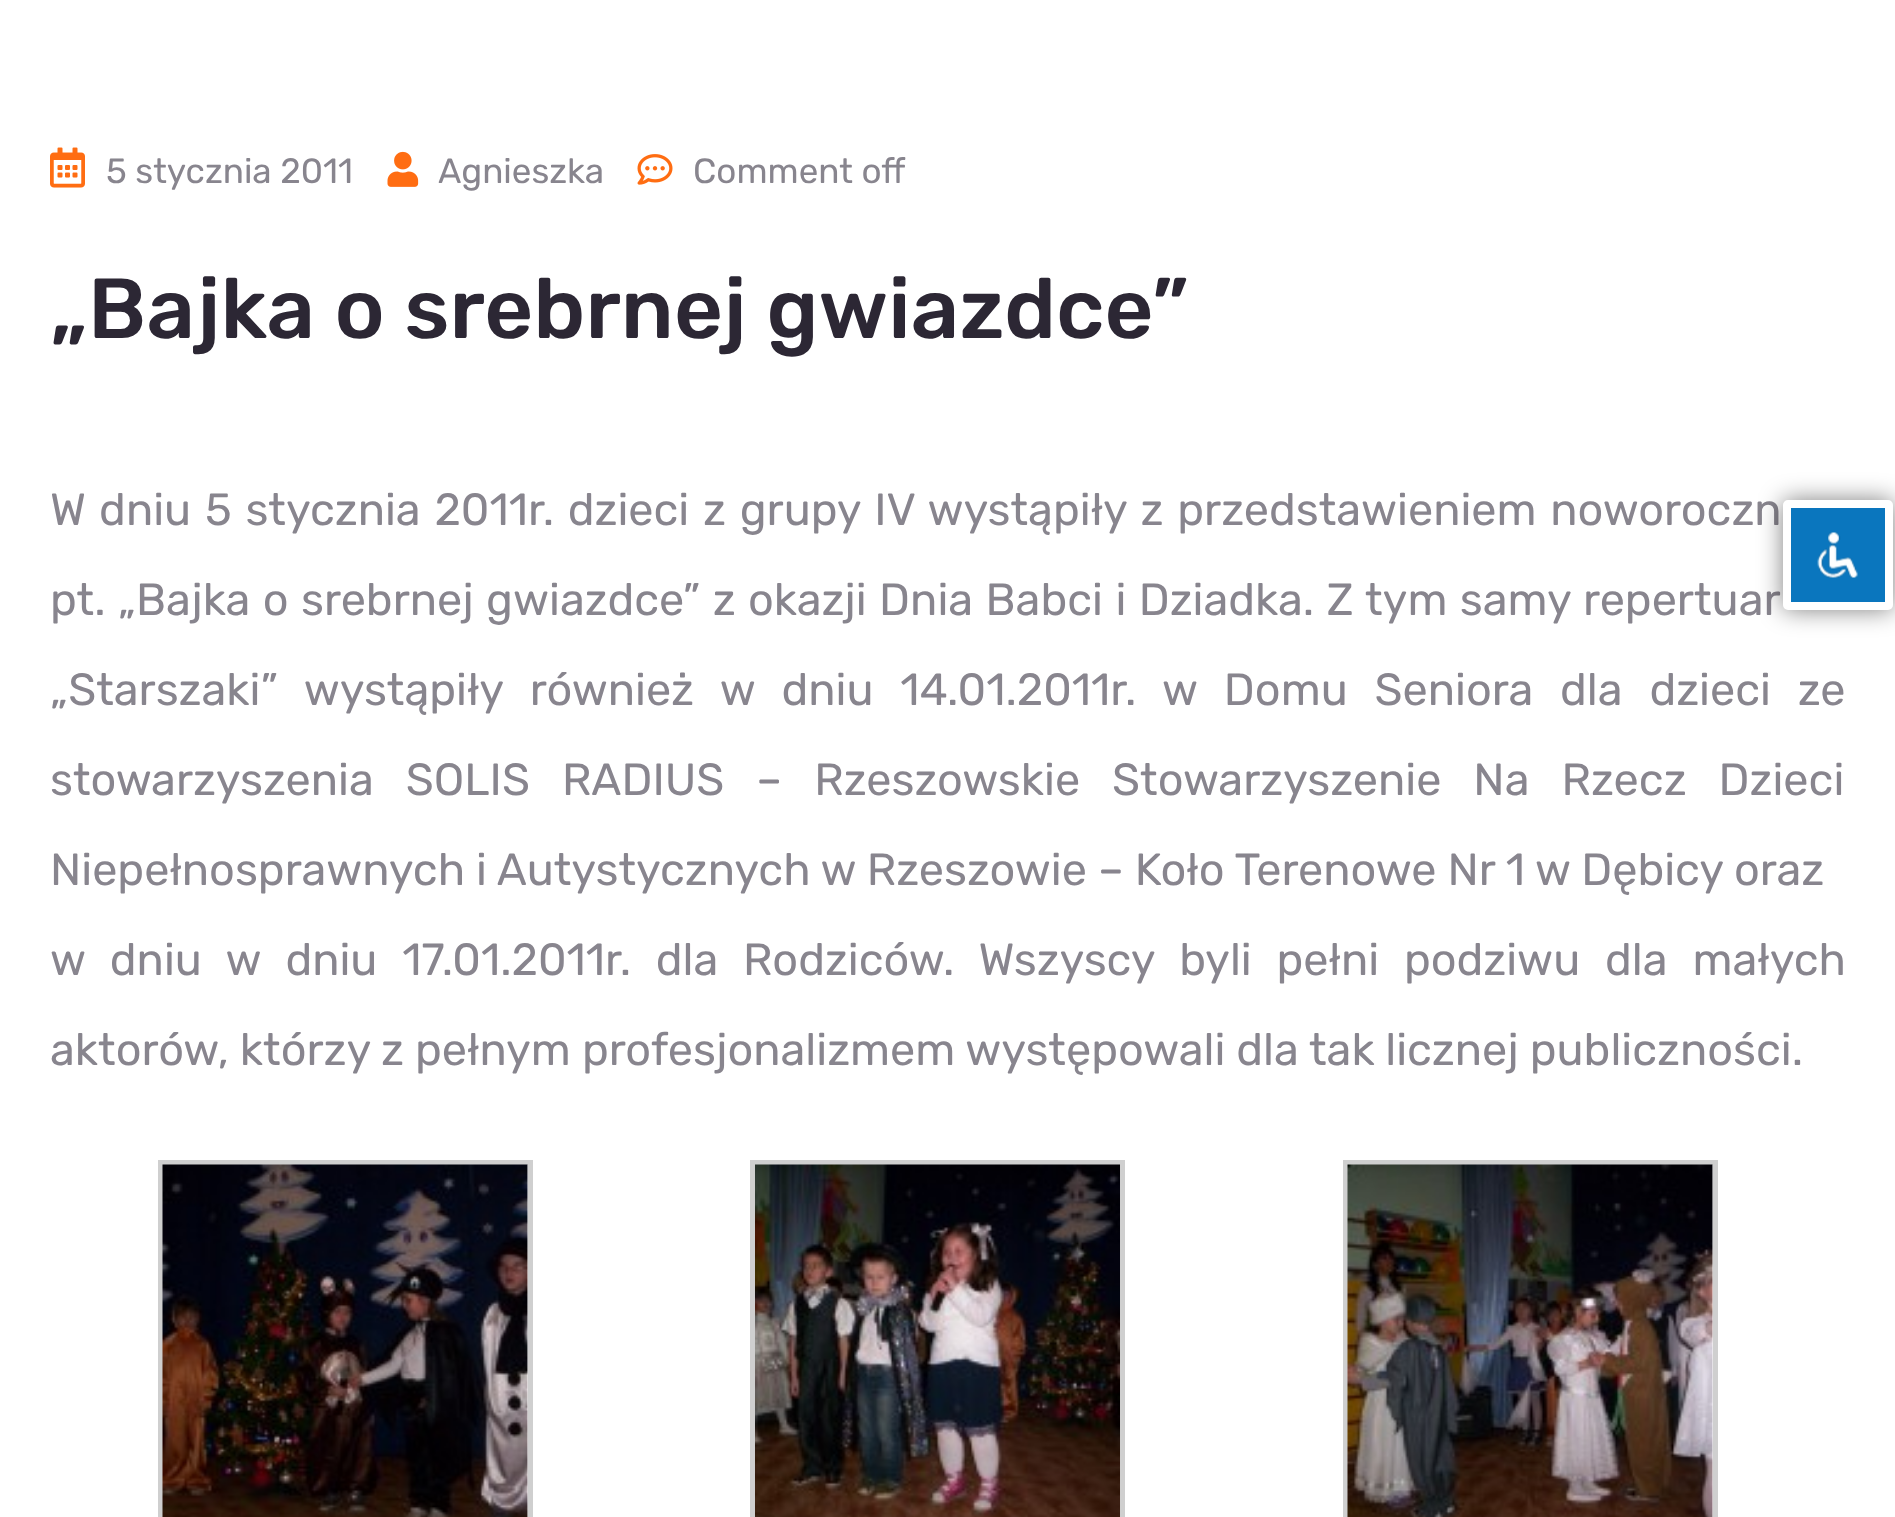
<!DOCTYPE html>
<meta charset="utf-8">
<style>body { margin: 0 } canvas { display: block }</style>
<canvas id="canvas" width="1895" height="1517"></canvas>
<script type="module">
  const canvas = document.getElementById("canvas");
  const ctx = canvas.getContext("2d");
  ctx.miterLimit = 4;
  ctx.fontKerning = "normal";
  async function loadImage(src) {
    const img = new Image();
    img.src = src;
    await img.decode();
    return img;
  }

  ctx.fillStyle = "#ffffff";
  ctx.fillRect(0, 0, 1895, 1517);
  ctx.drawImage(await loadImage("img1.png"), 50, 147, 35, 41);
  ctx.font = "35px Rubik";
  ctx.fillStyle = "#88858e";
  ctx.fillText("5 stycznia 2011", 106, 183);
  ctx.drawImage(await loadImage("img2.png"), 387, 151, 32, 36);
  ctx.fillText("Agnieszka", 438, 183);
  ctx.drawImage(await loadImage("img3.png"), 637, 154, 36, 31);
  ctx.fillText("Comment off", 693, 183);
  ctx.font = "500 85px Rubik";
  ctx.fillStyle = "#2c2734";
  ctx.fillText("„Bajka o srebrnej gwiazdce”", 50, 338);
  ctx.wordSpacing = "2.75px";
  ctx.font = "45px Rubik";
  ctx.fillStyle = "#88858e";
  ctx.fillText("W dniu 5 stycznia 2011r. dzieci z grupy IV wystąpiły z przedstawieniem noworoczn", 50, 525);
  ctx.wordSpacing = "1.4px";
  ctx.fillText("pt. „Bajka o srebrnej gwiazdce” z okazji Dnia Babci i Dziadka. Z tym samy repertuar", 50, 615);
  ctx.wordSpacing = "15.75px";
  ctx.fillText("„Starszaki” wystąpiły również w dniu 14.01.2011r. w Domu Seniora dla dzieci ze", 50, 705);
  ctx.wordSpacing = "21px";
  ctx.fillText("stowarzyszenia SOLIS RADIUS – Rzeszowskie Stowarzyszenie Na Rzecz Dzieci", 50, 795);
  ctx.wordSpacing = "0px";
  ctx.fillText("Niepełnosprawnych i Autystycznych w Rzeszowie – Koło Terenowe Nr 1 w Dębicy oraz", 50, 885);
  ctx.wordSpacing = "13.75px";
  ctx.fillText("w dniu w dniu 17.01.2011r. dla Rodziców. Wszyscy byli pełni podziwu dla małych", 50, 975);
  ctx.wordSpacing = "0px";
  ctx.fillText("aktorów, którzy z pełnym profesjonalizmem występowali dla tak licznej publiczności.", 50, 1065);
  ctx.strokeStyle = "#cfcfcf";
  ctx.lineWidth = 5;
  ctx.strokeRect(160.5, 1162.5, 370, 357);
  ctx.drawImage(await loadImage("img4.png"), 162, 1164, 366, 353);
  ctx.strokeRect(752.5, 1162.5, 370, 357);
  ctx.drawImage(await loadImage("img5.png"), 755, 1164, 365, 353);
  ctx.strokeRect(1345.5, 1162.5, 370, 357);
  ctx.drawImage(await loadImage("img6.png"), 1347, 1164, 366, 353);
  ctx.fillStyle = "rgba(0, 0, 0, 0.5)";
  ctx.filter = "blur(12.5px)";
  ctx.beginPath();
  ctx.roundRect(1783, 500, 110, 110, 5);
  ctx.fill();
  ctx.filter = "none";
  ctx.fillStyle = "#0a76be";
  ctx.beginPath();
  ctx.roundRect(1787, 504, 102, 102, 1);
  ctx.fill();
  ctx.strokeStyle = "#ffffff";
  ctx.lineWidth = 8;
  ctx.stroke();
  ctx.drawImage(await loadImage("img7.png"), 1817, 532, 41, 46);
</script>
